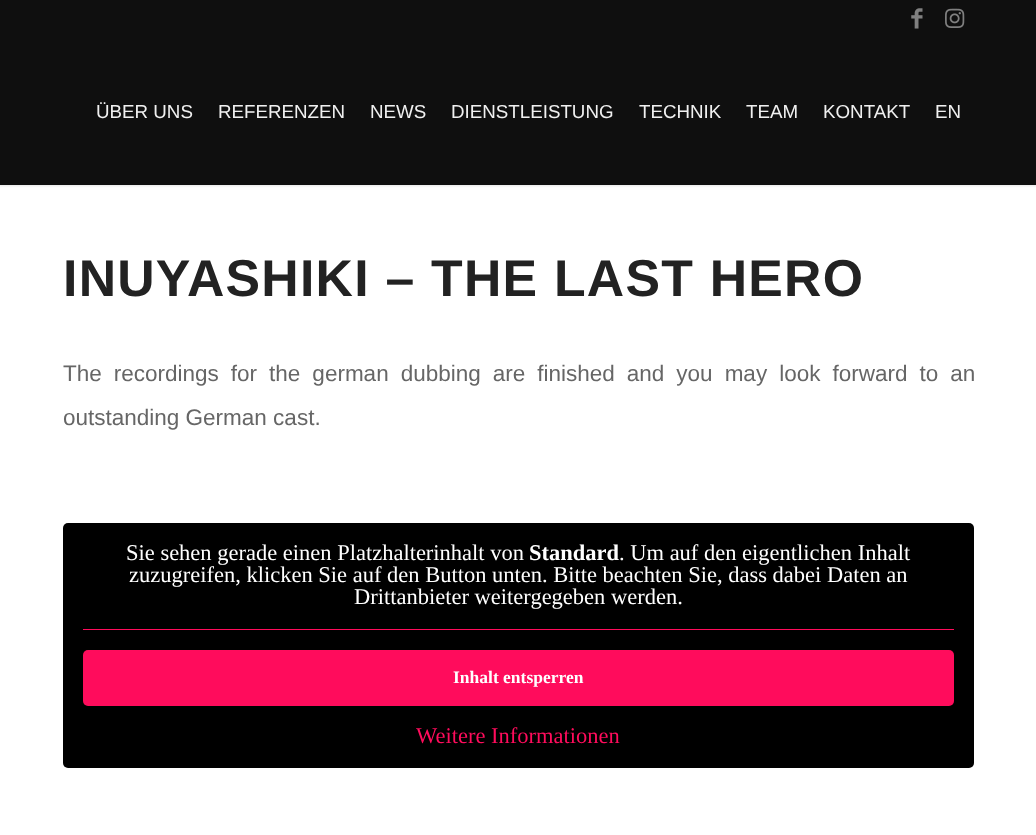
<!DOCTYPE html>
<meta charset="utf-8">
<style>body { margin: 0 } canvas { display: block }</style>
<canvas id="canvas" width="1036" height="835"></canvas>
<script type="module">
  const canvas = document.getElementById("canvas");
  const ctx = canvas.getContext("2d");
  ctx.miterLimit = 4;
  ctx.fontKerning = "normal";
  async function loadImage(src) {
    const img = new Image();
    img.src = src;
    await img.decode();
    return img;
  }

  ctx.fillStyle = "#ffffff";
  ctx.fillRect(0, 0, 1036, 835);
  ctx.fillStyle = "rgba(0, 0, 0, 0.1)";
  ctx.filter = "blur(1px)";
  ctx.beginPath();
  ctx.rect(-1, -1, 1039, 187);
  ctx.fill();
  ctx.filter = "none";
  ctx.fillStyle = "#0f0f0f";
  ctx.fillRect(0, 0, 1036, 185);
  ctx.drawImage(await loadImage("img1.png"), 911, 8, 12, 21);
  ctx.drawImage(await loadImage("img2.png"), 945, 8, 20, 20);
  ctx.font = "18.75px Liberation Sans";
  ctx.fillStyle = "#f0f0f0";
  ctx.fillText("ÜBER UNS", 96, 118);
  ctx.fillText("REFERENZEN", 218, 118);
  ctx.fillText("NEWS", 370, 118);
  ctx.fillText("DIENSTLEISTUNG", 451, 118);
  ctx.fillText("TECHNIK", 639, 118);
  ctx.fillText("TEAM", 746, 118);
  ctx.fillText("KONTAKT", 823, 118);
  ctx.fillText("EN", 935, 118);
  ctx.letterSpacing = "1.25px";
  ctx.font = "bold 51.75px Liberation Sans";
  ctx.fillStyle = "#222222";
  ctx.fillText("INUYASHIKI – THE LAST HERO", 63, 296);
  ctx.letterSpacing = "0px";
  ctx.wordSpacing = "5.75px";
  ctx.font = "22.5px Liberation Sans";
  ctx.fillStyle = "#666666";
  ctx.fillText("The recordings for the german dubbing are finished and you may look forward to an", 63, 381);
  ctx.wordSpacing = "0px";
  ctx.fillText("outstanding German cast.", 63, 425);
  ctx.fillStyle = "#000000";
  ctx.beginPath();
  ctx.roundRect(63, 523, 911, 245, 5);
  ctx.fill();
  ctx.fillStyle = "#ff0c5c";
  ctx.fillRect(83, 629, 871, 1);
  ctx.font = "22.5px Liberation Serif";
  ctx.fillStyle = "#ffffff";
  ctx.fillText("Sie sehen gerade einen Platzhalterinhalt von", 126, 560);
  ctx.font = "bold 22.5px Liberation Serif";
  ctx.fillText("Standard", 529, 560);
  ctx.font = "22.5px Liberation Serif";
  ctx.fillText(". Um auf den eigentlichen Inhalt", 619, 560);
  ctx.fillText("zuzugreifen, klicken Sie auf den Button unten. Bitte beachten Sie, dass dabei Daten an", 129, 582);
  ctx.fillText("Drittanbieter weitergegeben werden.", 354, 604);
  ctx.fillStyle = "#ff0c5c";
  ctx.beginPath();
  ctx.roundRect(83, 650, 871, 56, 5);
  ctx.fill();
  ctx.font = "bold 17.5px Liberation Serif";
  ctx.fillStyle = "#ffffff";
  ctx.fillText("Inhalt entsperren", 453, 683);
  ctx.font = "22.5px Liberation Serif";
  ctx.fillStyle = "#ff0c5c";
  ctx.fillText("Weitere Informationen", 416, 743);
</script>
